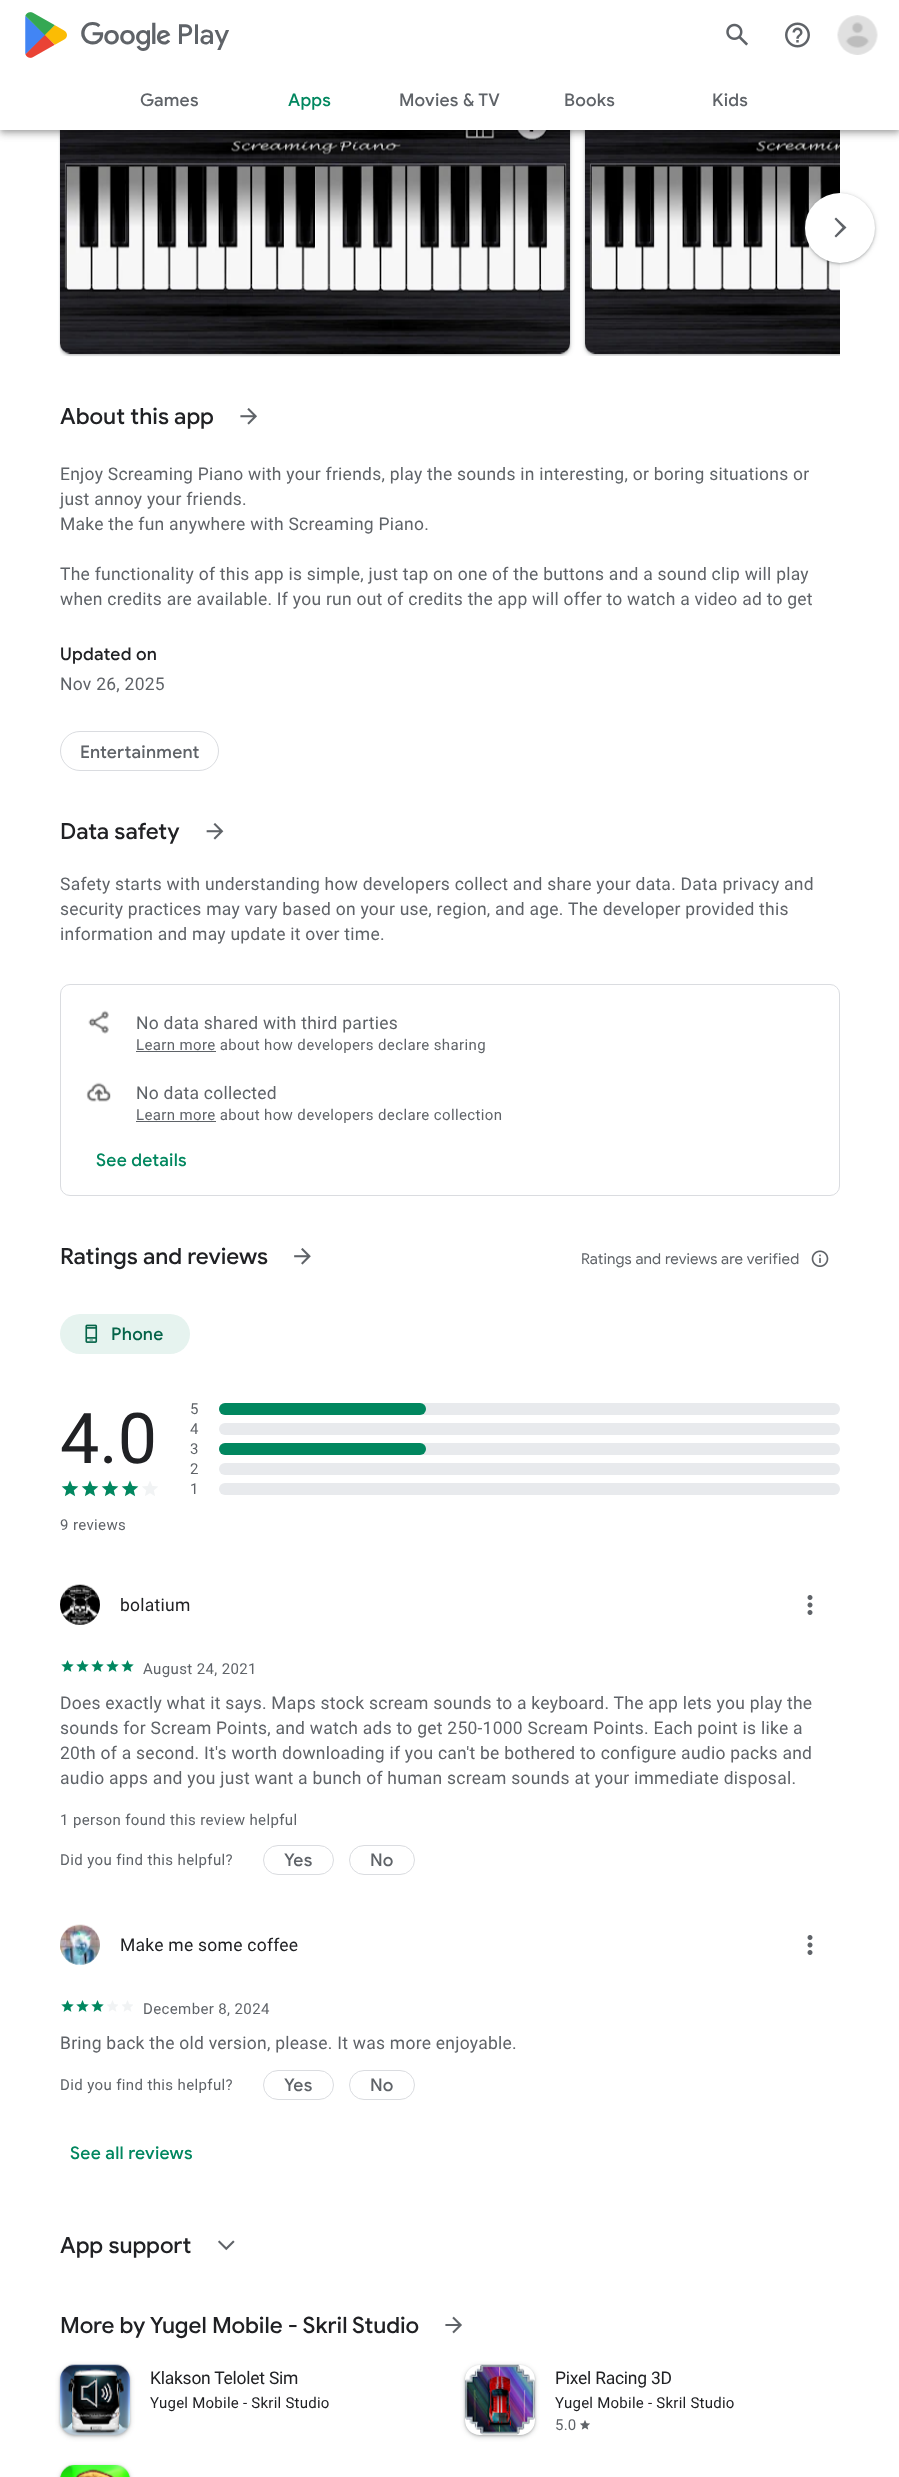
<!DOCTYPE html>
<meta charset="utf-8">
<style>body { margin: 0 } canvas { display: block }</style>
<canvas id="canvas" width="899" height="2477"></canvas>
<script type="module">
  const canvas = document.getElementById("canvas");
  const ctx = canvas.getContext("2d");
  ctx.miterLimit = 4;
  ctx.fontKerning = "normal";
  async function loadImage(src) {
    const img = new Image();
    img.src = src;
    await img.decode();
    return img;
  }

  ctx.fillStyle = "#ffffff";
  ctx.fillRect(0, 0, 899, 2477);
  ctx.save();
  ctx.beginPath();
  ctx.rect(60, 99, 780, 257);
  ctx.clip();
  ctx.fillStyle = "rgba(60, 64, 67, 0.15)";
  ctx.filter = "blur(2px)";
  ctx.beginPath();
  ctx.roundRect(59, 99, 512, 257, 11);
  ctx.fill();
  ctx.filter = "none";
  ctx.restore();
  ctx.save();
  ctx.beginPath();
  ctx.moveTo(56, 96);
  ctx.lineTo(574, 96);
  ctx.lineTo(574, 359);
  ctx.lineTo(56, 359);
  ctx.closePath();
  ctx.moveTo(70, 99);
  ctx.lineTo(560, 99);
  ctx.bezierCurveTo(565.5, 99, 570, 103.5, 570, 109);
  ctx.lineTo(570, 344);
  ctx.bezierCurveTo(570, 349.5, 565.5, 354, 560, 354);
  ctx.lineTo(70, 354);
  ctx.bezierCurveTo(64.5, 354, 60, 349.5, 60, 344);
  ctx.lineTo(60, 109);
  ctx.bezierCurveTo(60, 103.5, 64.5, 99, 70, 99);
  ctx.closePath();
  ctx.clip("evenodd");
  ctx.fillStyle = "rgba(60, 64, 67, 0.3)";
  ctx.filter = "blur(1px)";
  ctx.beginPath();
  ctx.roundRect(60, 100, 510, 255, 10);
  ctx.fill();
  ctx.filter = "none";
  ctx.restore();
  ctx.drawImage(await loadImage("img5.png"), 60, 130, 510, 224);
  ctx.save();
  ctx.beginPath();
  ctx.rect(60, 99, 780, 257);
  ctx.clip();
  ctx.fillStyle = "rgba(60, 64, 67, 0.15)";
  ctx.filter = "blur(2px)";
  ctx.beginPath();
  ctx.roundRect(584, 99, 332, 257, 11);
  ctx.fill();
  ctx.filter = "none";
  ctx.fillStyle = "rgba(60, 64, 67, 0.3)";
  ctx.filter = "blur(1px)";
  ctx.beginPath();
  ctx.roundRect(585, 100, 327, 255, 10);
  ctx.fill();
  ctx.filter = "none";
  ctx.restore();
  ctx.drawImage(await loadImage("img6.png"), 585, 130, 255, 224);
  ctx.fillStyle = "rgba(0, 0, 0, 0.2)";
  ctx.filter = "blur(2.5px)";
  ctx.beginPath();
  ctx.rect(1, 4, 898, 127);
  ctx.fill();
  ctx.filter = "none";
  ctx.fillStyle = "rgba(0, 0, 0, 0.12)";
  ctx.filter = "blur(6px)";
  ctx.beginPath();
  ctx.rect(0, 1, 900, 130);
  ctx.fill();
  ctx.filter = "none";
  ctx.fillStyle = "rgba(0, 0, 0, 0.14)";
  ctx.filter = "blur(3px)";
  ctx.beginPath();
  ctx.rect(0, 5, 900, 130);
  ctx.fill();
  ctx.filter = "none";
  ctx.fillStyle = "#ffffff";
  ctx.fillRect(0, 0, 899, 130);
  ctx.drawImage(await loadImage("img1.png"), 25, 12, 42, 46);
  ctx.font = "500 27.5px Google Sans";
  ctx.fillStyle = "#5f6368";
  ctx.fillText("google_logo Play", 80, 44);
  ctx.drawImage(await loadImage("img2.png"), 726, 23, 22, 23);
  ctx.drawImage(await loadImage("img3.png"), 785, 22, 25, 26);
  ctx.drawImage(await loadImage("img4.png"), 837, 15, 41, 40);
  ctx.letterSpacing = "0.25px";
  ctx.font = "500 17.5px Google Sans";
  ctx.fillText("Games", 140, 106);
  ctx.fillStyle = "#01875f";
  ctx.fillText("Apps", 288, 106);
  ctx.fillStyle = "#5f6368";
  ctx.fillText("Movies & TV", 399, 106);
  ctx.fillText("Books", 564, 106);
  ctx.fillText("Kids", 712, 106);
  ctx.fillStyle = "rgba(60, 64, 67, 0.15)";
  ctx.filter = "blur(2px)";
  ctx.beginPath();
  ctx.roundRect(804, 193, 72, 72, 36);
  ctx.fill();
  ctx.filter = "none";
  ctx.fillStyle = "rgba(60, 64, 67, 0.3)";
  ctx.filter = "blur(1px)";
  ctx.beginPath();
  ctx.roundRect(805, 194, 70, 70, 35);
  ctx.fill();
  ctx.filter = "none";
  ctx.fillStyle = "#ffffff";
  ctx.beginPath();
  ctx.arc(840, 228, 35, 0, Math.PI * 2);
  ctx.fill();
  ctx.fillStyle = "#5f6368";
  ctx.beginPath();
  ctx.moveTo(834.5, 236);
  ctx.lineTo(836, 237.5);
  ctx.lineTo(846.5, 227.5);
  ctx.lineTo(836, 217.5);
  ctx.lineTo(834.5, 219);
  ctx.lineTo(842.5, 227.5);
  ctx.closePath();
  ctx.fill();
  ctx.letterSpacing = "0px";
  ctx.font = "500 22.5px Google Sans";
  ctx.fillStyle = "#202124";
  ctx.fillText("About this app", 60, 424);
  ctx.drawImage(await loadImage("img7.png"), 240, 408, 17, 17);
  ctx.letterSpacing = "0.25px";
  ctx.font = "17.5px Roboto";
  ctx.fillStyle = "#5f6368";
  ctx.fillText("Enjoy Screaming Piano with your friends, play the sounds in interesting, or boring situations or", 60, 480);
  ctx.fillText("just annoy your friends.", 60, 505);
  ctx.fillText("Make the fun anywhere with Screaming Piano.", 60, 530);
  ctx.fillText("The functionality of this app is simple, just tap on one of the buttons and a sound clip will play", 60, 580);
  ctx.fillText("when credits are available. If you run out of credits the app will offer to watch a video ad to get", 60, 605);
  ctx.font = "500 17.5px Google Sans";
  ctx.fillStyle = "#202124";
  ctx.fillText("Updated on", 60, 660);
  ctx.font = "17.5px Roboto";
  ctx.fillStyle = "#5f6368";
  ctx.fillText("Nov 26, 2025", 60, 690);
  ctx.beginPath();
  ctx.roundRect(60.5, 731.5, 158, 39, 19.5);
  ctx.strokeStyle = "#dadce0";
  ctx.stroke();
  ctx.font = "500 17.5px Google Sans";
  ctx.fillText("Entertainment", 80, 758);
  ctx.letterSpacing = "0px";
  ctx.font = "500 22.5px Google Sans";
  ctx.fillStyle = "#202124";
  ctx.fillText("Data safety", 60, 839);
  ctx.drawImage(await loadImage("img8.png"), 206, 823, 18, 17);
  ctx.letterSpacing = "0.25px";
  ctx.font = "17.5px Roboto";
  ctx.fillStyle = "#5f6368";
  ctx.fillText("Safety starts with understanding how developers collect and share your data. Data privacy and", 60, 890);
  ctx.fillText("security practices may vary based on your use, region, and age. The developer provided this", 60, 915);
  ctx.fillText("information and may update it over time.", 60, 940);
  ctx.beginPath();
  ctx.roundRect(60.5, 984.5, 779, 211, 9.5);
  ctx.stroke();
  ctx.drawImage(await loadImage("img9.png"), 88, 1010, 21, 24);
  ctx.fillText("No data shared with third parties", 136, 1029);
  ctx.fillRect(136, 1051, 80, 1);
  ctx.letterSpacing = "0.38px";
  ctx.font = "15px Roboto";
  ctx.fillText("Learn more about how developers declare sharing", 136, 1050);
  ctx.drawImage(await loadImage("img10.png"), 86, 1082, 25, 20);
  ctx.letterSpacing = "0.25px";
  ctx.font = "17.5px Roboto";
  ctx.fillText("No data collected", 136, 1099);
  ctx.fillRect(136, 1121, 80, 1);
  ctx.letterSpacing = "0.38px";
  ctx.font = "15px Roboto";
  ctx.fillText("Learn more about how developers declare collection", 136, 1120);
  ctx.letterSpacing = "0.25px";
  ctx.font = "500 17.5px Google Sans";
  ctx.fillStyle = "#01875f";
  ctx.fillText("See details", 96, 1166);
  ctx.letterSpacing = "0px";
  ctx.font = "500 22.5px Google Sans";
  ctx.fillStyle = "#202124";
  ctx.fillText("Ratings and reviews", 60, 1264);
  ctx.drawImage(await loadImage("img11.png"), 294, 1248, 17, 17);
  ctx.letterSpacing = "0.15px";
  ctx.font = "15px Google Sans";
  ctx.fillStyle = "#5f6368";
  ctx.fillText("Ratings and reviews are verified", 581, 1264);
  ctx.drawImage(await loadImage("img12.png"), 811, 1250, 18, 17);
  ctx.fillStyle = "#e6f3ef";
  ctx.beginPath();
  ctx.roundRect(60, 1314, 130, 40, 20);
  ctx.fill();
  ctx.drawImage(await loadImage("img13.png"), 85, 1324, 13, 19);
  ctx.letterSpacing = "0.25px";
  ctx.font = "500 17.5px Google Sans";
  ctx.fillStyle = "#056449";
  ctx.fillText("Phone", 111, 1340);
  ctx.letterSpacing = "0px";
  ctx.font = "70px Roboto";
  ctx.fillStyle = "#202124";
  ctx.fillText("4.0", 60, 1463);
  ctx.drawImage(await loadImage("img14.png"), 61, 1480, 18, 17);
  ctx.drawImage(await loadImage("img14.png"), 81, 1480, 18, 17);
  ctx.drawImage(await loadImage("img14.png"), 101, 1480, 18, 17);
  ctx.drawImage(await loadImage("img14.png"), 121, 1480, 18, 17);
  ctx.drawImage(await loadImage("img15.png"), 142, 1481, 16, 15);
  ctx.letterSpacing = "0.38px";
  ctx.font = "15px Roboto";
  ctx.fillStyle = "#5f6368";
  ctx.fillText("9 reviews", 60, 1530);
  ctx.fillText("5", 190, 1414);
  ctx.fillStyle = "#e8eaed";
  ctx.beginPath();
  ctx.roundRect(219, 1403, 621, 12, 6);
  ctx.fill();
  ctx.fillStyle = "#01875f";
  ctx.beginPath();
  ctx.roundRect(219, 1403, 207, 12, 6);
  ctx.fill();
  ctx.fillStyle = "#5f6368";
  ctx.fillText("4", 190, 1434);
  ctx.fillStyle = "#e8eaed";
  ctx.beginPath();
  ctx.roundRect(219, 1423, 621, 12, 6);
  ctx.fill();
  ctx.fillStyle = "#5f6368";
  ctx.fillText("3", 190, 1454);
  ctx.fillStyle = "#e8eaed";
  ctx.beginPath();
  ctx.roundRect(219, 1443, 621, 12, 6);
  ctx.fill();
  ctx.fillStyle = "#01875f";
  ctx.beginPath();
  ctx.roundRect(219, 1443, 207, 12, 6);
  ctx.fill();
  ctx.fillStyle = "#5f6368";
  ctx.fillText("2", 190, 1474);
  ctx.fillStyle = "#e8eaed";
  ctx.beginPath();
  ctx.roundRect(219, 1463, 621, 12, 6);
  ctx.fill();
  ctx.fillStyle = "#5f6368";
  ctx.fillText("1", 190, 1494);
  ctx.fillStyle = "#e8eaed";
  ctx.beginPath();
  ctx.roundRect(219, 1483, 621, 12, 6);
  ctx.fill();
  ctx.drawImage(await loadImage("img16.png"), 60, 1584, 40, 41);
  ctx.letterSpacing = "0.25px";
  ctx.font = "17.5px Roboto";
  ctx.fillStyle = "#202124";
  ctx.fillText("bolatium", 120, 1611);
  ctx.drawImage(await loadImage("img17.png"), 807, 1595, 6, 20);
  ctx.drawImage(await loadImage("img18.png"), 61, 1660, 13, 12);
  ctx.drawImage(await loadImage("img18.png"), 76, 1660, 13, 12);
  ctx.drawImage(await loadImage("img18.png"), 91, 1660, 13, 12);
  ctx.drawImage(await loadImage("img18.png"), 106, 1660, 13, 12);
  ctx.drawImage(await loadImage("img18.png"), 121, 1660, 13, 12);
  ctx.letterSpacing = "0.38px";
  ctx.font = "15px Roboto";
  ctx.fillStyle = "#5f6368";
  ctx.fillText("August 24, 2021", 143, 1674);
  ctx.letterSpacing = "0.25px";
  ctx.font = "17.5px Roboto";
  ctx.fillText("Does exactly what it says. Maps stock scream sounds to a keyboard. The app lets you play the", 60, 1709);
  ctx.fillText("sounds for Scream Points, and watch ads to get 250-1000 Scream Points. Each point is like a", 60, 1734);
  ctx.fillText("20th of a second. It's worth downloading if you can't be bothered to configure audio packs and", 60, 1759);
  ctx.fillText("audio apps and you just want a bunch of human scream sounds at your immediate disposal.", 60, 1784);
  ctx.letterSpacing = "0.38px";
  ctx.font = "15px Roboto";
  ctx.fillText("1 person found this review helpful", 60, 1825);
  ctx.fillText("Did you find this helpful?", 60, 1865);
  ctx.beginPath();
  ctx.roundRect(263.5, 1845.5, 70, 29, 14.5);
  ctx.stroke();
  ctx.letterSpacing = "0.25px";
  ctx.font = "500 17.5px Google Sans";
  ctx.fillText("Yes", 284, 1866);
  ctx.beginPath();
  ctx.roundRect(349.5, 1845.5, 65, 29, 14.5);
  ctx.stroke();
  ctx.fillText("No", 370, 1866);
  ctx.drawImage(await loadImage("img19.png"), 60, 1924, 40, 41);
  ctx.font = "17.5px Roboto";
  ctx.fillStyle = "#202124";
  ctx.fillText("Make me some coffee", 120, 1951);
  ctx.drawImage(await loadImage("img17.png"), 807, 1935, 6, 20);
  ctx.drawImage(await loadImage("img18.png"), 61, 2000, 13, 12);
  ctx.drawImage(await loadImage("img18.png"), 76, 2000, 13, 12);
  ctx.drawImage(await loadImage("img18.png"), 91, 2000, 13, 12);
  ctx.drawImage(await loadImage("img20.png"), 107, 2000, 11, 12);
  ctx.drawImage(await loadImage("img20.png"), 122, 2000, 11, 12);
  ctx.letterSpacing = "0.38px";
  ctx.font = "15px Roboto";
  ctx.fillStyle = "#5f6368";
  ctx.fillText("December 8, 2024", 143, 2014);
  ctx.letterSpacing = "0.25px";
  ctx.font = "17.5px Roboto";
  ctx.fillText("Bring back the old version, please. It was more enjoyable.", 60, 2049);
  ctx.letterSpacing = "0.38px";
  ctx.font = "15px Roboto";
  ctx.fillText("Did you find this helpful?", 60, 2090);
  ctx.beginPath();
  ctx.roundRect(263.5, 2070.5, 70, 29, 14.5);
  ctx.stroke();
  ctx.letterSpacing = "0.25px";
  ctx.font = "500 17.5px Google Sans";
  ctx.fillText("Yes", 284, 2091);
  ctx.beginPath();
  ctx.roundRect(349.5, 2070.5, 65, 29, 14.5);
  ctx.stroke();
  ctx.fillText("No", 370, 2091);
  ctx.fillStyle = "#01875f";
  ctx.fillText("See all reviews", 70, 2159);
  ctx.letterSpacing = "0px";
  ctx.font = "500 22.5px Google Sans";
  ctx.fillStyle = "#202124";
  ctx.fillText("App support", 60, 2253);
  ctx.drawImage(await loadImage("img21.png"), 218, 2240, 17, 11);
  ctx.fillText("More by Yugel Mobile - Skril Studio", 60, 2333);
  ctx.drawImage(await loadImage("img22.png"), 445, 2316, 17, 18);
  ctx.fillStyle = "rgba(60, 64, 67, 0.15)";
  ctx.filter = "blur(2px)";
  ctx.beginPath();
  ctx.roundRect(59, 2365, 72, 73, 16);
  ctx.fill();
  ctx.filter = "none";
  ctx.fillStyle = "rgba(60, 64, 67, 0.3)";
  ctx.filter = "blur(1px)";
  ctx.beginPath();
  ctx.roundRect(60, 2366, 70, 70, 15);
  ctx.fill();
  ctx.filter = "none";
  ctx.drawImage(await loadImage("img23.png"), 60, 2364, 70, 71);
  ctx.letterSpacing = "-0.25px";
  ctx.font = "17.5px Roboto";
  ctx.fillStyle = "#202124";
  ctx.fillText("Klakson Telolet Sim", 150, 2384);
  ctx.letterSpacing = "0.25px";
  ctx.font = "15px Roboto";
  ctx.fillText("Yugel Mobile - Skril Studio", 150, 2408);
  ctx.save();
  ctx.beginPath();
  ctx.moveTo(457, 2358);
  ctx.lineTo(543, 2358);
  ctx.lineTo(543, 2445);
  ctx.lineTo(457, 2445);
  ctx.closePath();
  ctx.moveTo(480, 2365);
  ctx.lineTo(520, 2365);
  ctx.bezierCurveTo(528.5, 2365, 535, 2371.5, 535, 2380);
  ctx.lineTo(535, 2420);
  ctx.bezierCurveTo(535, 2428.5, 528.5, 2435, 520, 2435);
  ctx.lineTo(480, 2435);
  ctx.bezierCurveTo(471.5, 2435, 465, 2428.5, 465, 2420);
  ctx.lineTo(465, 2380);
  ctx.bezierCurveTo(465, 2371.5, 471.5, 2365, 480, 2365);
  ctx.closePath();
  ctx.clip("evenodd");
  ctx.fillStyle = "rgba(60, 64, 67, 0.15)";
  ctx.filter = "blur(2px)";
  ctx.beginPath();
  ctx.roundRect(464, 2365, 72, 73, 16);
  ctx.fill();
  ctx.filter = "none";
  ctx.restore();
  ctx.save();
  ctx.beginPath();
  ctx.moveTo(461, 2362);
  ctx.lineTo(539, 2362);
  ctx.lineTo(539, 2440);
  ctx.lineTo(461, 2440);
  ctx.closePath();
  ctx.moveTo(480, 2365);
  ctx.lineTo(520, 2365);
  ctx.bezierCurveTo(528.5, 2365, 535, 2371.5, 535, 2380);
  ctx.lineTo(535, 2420);
  ctx.bezierCurveTo(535, 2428.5, 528.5, 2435, 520, 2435);
  ctx.lineTo(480, 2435);
  ctx.bezierCurveTo(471.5, 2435, 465, 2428.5, 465, 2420);
  ctx.lineTo(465, 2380);
  ctx.bezierCurveTo(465, 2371.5, 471.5, 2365, 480, 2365);
  ctx.closePath();
  ctx.clip("evenodd");
  ctx.fillStyle = "rgba(60, 64, 67, 0.3)";
  ctx.filter = "blur(1px)";
  ctx.beginPath();
  ctx.roundRect(465, 2366, 70, 70, 15);
  ctx.fill();
  ctx.filter = "none";
  ctx.restore();
  ctx.drawImage(await loadImage("img24.png"), 465, 2364, 70, 71);
  ctx.letterSpacing = "-0.25px";
  ctx.font = "17.5px Roboto";
  ctx.fillText("Pixel Racing 3D", 555, 2384);
  ctx.letterSpacing = "0.25px";
  ctx.font = "15px Roboto";
  ctx.fillText("Yugel Mobile - Skril Studio", 555, 2408);
  ctx.fillStyle = "#5f6368";
  ctx.fillText("5.0", 555, 2430);
  ctx.drawImage(await loadImage("img25.png"), 580, 2420, 10, 10);
  ctx.fillStyle = "rgba(60, 64, 67, 0.15)";
  ctx.filter = "blur(2px)";
  ctx.beginPath();
  ctx.roundRect(59, 2465, 72, 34, 16);
  ctx.fill();
  ctx.filter = "none";
  ctx.fillStyle = "rgba(60, 64, 67, 0.3)";
  ctx.filter = "blur(1px)";
  ctx.beginPath();
  ctx.roundRect(60, 2466, 70, 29, 15);
  ctx.fill();
  ctx.filter = "none";
  ctx.drawImage(await loadImage("img26.png"), 60, 2465, 70, 12);
</script>
